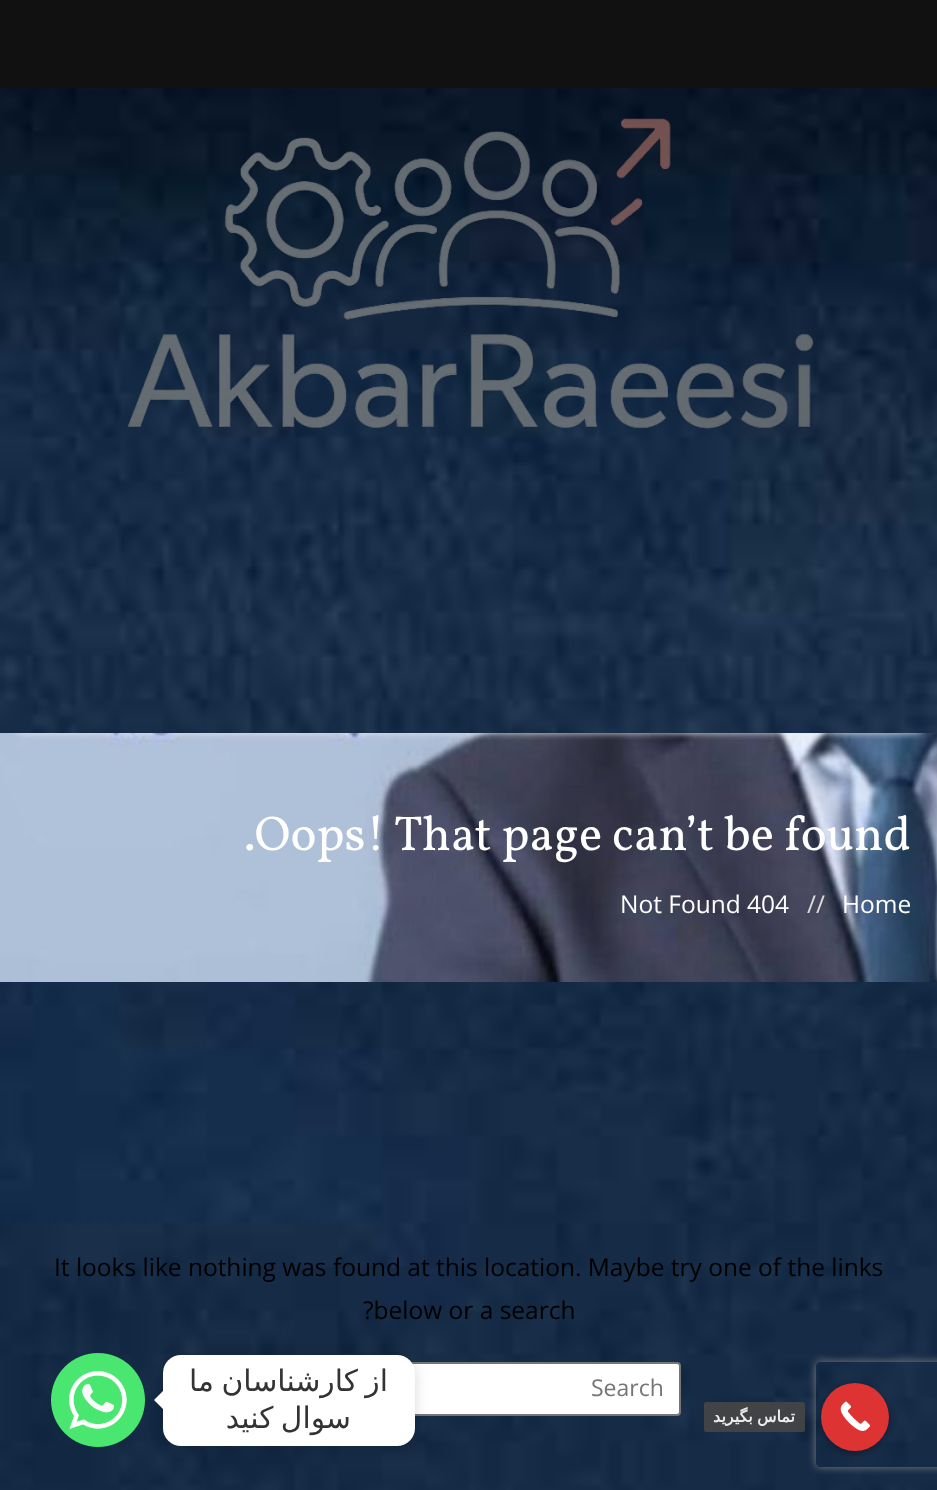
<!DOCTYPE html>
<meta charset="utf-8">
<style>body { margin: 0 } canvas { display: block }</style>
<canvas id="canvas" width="937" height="1490"></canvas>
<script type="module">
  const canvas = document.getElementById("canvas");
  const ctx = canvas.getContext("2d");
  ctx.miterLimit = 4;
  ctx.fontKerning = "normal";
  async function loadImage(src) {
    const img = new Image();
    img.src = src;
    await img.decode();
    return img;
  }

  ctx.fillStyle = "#ffffff";
  ctx.fillRect(0, 0, 937, 1490);
  ctx.drawImage(await loadImage("img1.png"), 0, 88, 937, 1402);
  ctx.fillStyle = "#111111";
  ctx.fillRect(0, 0, 937, 88);
  ctx.drawImage(await loadImage("img3.png"), 0, 733, 937, 249);
  ctx.save();
  ctx.beginPath();
  ctx.rect(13, 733, 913, 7);
  ctx.clip();
  ctx.fillStyle = "rgba(238, 238, 238, 0.9)";
  ctx.filter = "blur(3.5px)";
  ctx.beginPath();
  ctx.rect(18, 123, 903, 610);
  ctx.fill();
  ctx.filter = "none";
  ctx.restore();
  ctx.drawImage(await loadImage("img2.png"), 127, 118, 687, 311);
  ctx.font = "49px Vollkorn";
  ctx.fillStyle = "#ffffff";
  ctx.fillText(".Oops! That page can’t be found", 244, 850);
  ctx.font = "24.5px Open Sans";
  ctx.fillText("Not Found 404", 620, 913);
  ctx.fillStyle = "#dddddd";
  ctx.fillText("//", 807, 913);
  ctx.fillStyle = "#ffffff";
  ctx.fillText("Home", 842, 913);
  ctx.fillStyle = "#000000";
  ctx.fillText("It looks like nothing was found at this location. Maybe try one of the links", 54, 1276);
  ctx.fillText("?below or a search", 363, 1319);
  ctx.fillStyle = "#ffffff";
  ctx.beginPath();
  ctx.roundRect(258, 1363, 422, 52, 3);
  ctx.fill();
  ctx.strokeStyle = "#767676";
  ctx.lineWidth = 2;
  ctx.stroke();
  ctx.font = "23px Open Sans";
  ctx.fillStyle = "#757575";
  ctx.fillText("Search", 591, 1396);
  ctx.drawImage(await loadImage("img4.png"), 51, 1353, 94, 94);
  ctx.fillStyle = "rgba(0, 0, 0, 0.15)";
  ctx.filter = "blur(7px)";
  ctx.beginPath();
  ctx.roundRect(163, 1358, 252, 91, 18);
  ctx.fill();
  ctx.filter = "none";
  ctx.fillStyle = "#ffffff";
  ctx.beginPath();
  ctx.roundRect(163, 1355, 252, 91, 18);
  ctx.fill();
  ctx.beginPath();
  ctx.moveTo(163, 1391);
  ctx.lineTo(163, 1409);
  ctx.lineTo(154, 1400);
  ctx.closePath();
  ctx.fill();
  ctx.wordSpacing = "-2px";
  ctx.direction = "rtl";
  ctx.font = "29.75px DejaVu Sans";
  ctx.fillStyle = "#333333";
  ctx.fillText("از کارشناسان ما", 388, 1391);
  ctx.fillText("سوال کنید", 351, 1428);
  ctx.fillStyle = "rgba(0, 0, 0, 0.3)";
  ctx.filter = "blur(3.5px)";
  ctx.beginPath();
  ctx.roundRect(821, 1386, 68, 68, 34);
  ctx.fill();
  ctx.filter = "none";
  ctx.save();
  ctx.beginPath();
  ctx.moveTo(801, 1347);
  ctx.lineTo(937, 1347);
  ctx.lineTo(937, 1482);
  ctx.lineTo(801, 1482);
  ctx.closePath();
  ctx.moveTo(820, 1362);
  ctx.lineTo(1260, 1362);
  ctx.bezierCurveTo(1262, 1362, 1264, 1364, 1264, 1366);
  ctx.lineTo(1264, 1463);
  ctx.bezierCurveTo(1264, 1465, 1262, 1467, 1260, 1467);
  ctx.lineTo(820, 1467);
  ctx.bezierCurveTo(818, 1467, 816, 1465, 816, 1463);
  ctx.lineTo(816, 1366);
  ctx.bezierCurveTo(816, 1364, 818, 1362, 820, 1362);
  ctx.closePath();
  ctx.clip("evenodd");
  ctx.fillStyle = "#808080";
  ctx.filter = "blur(4.5px)";
  ctx.beginPath();
  ctx.roundRect(816, 1362, 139, 105, 4);
  ctx.fill();
  ctx.filter = "none";
  ctx.restore();
  ctx.fillStyle = "#dd3333";
  ctx.beginPath();
  ctx.arc(855, 1417, 34, 0, Math.PI * 2);
  ctx.fill();
  ctx.drawImage(await loadImage("img5.png"), 840, 1401, 30, 30);
  ctx.fillStyle = "rgba(70, 70, 70, 0.9)";
  ctx.beginPath();
  ctx.roundRect(704, 1402, 101, 30, 2.5);
  ctx.fill();
  ctx.wordSpacing = "-1px";
  ctx.font = "bold 16px DejaVu Sans";
  ctx.fillStyle = "#ececec";
  ctx.fillText("تماس بگیرید", 795, 1422);
</script>
